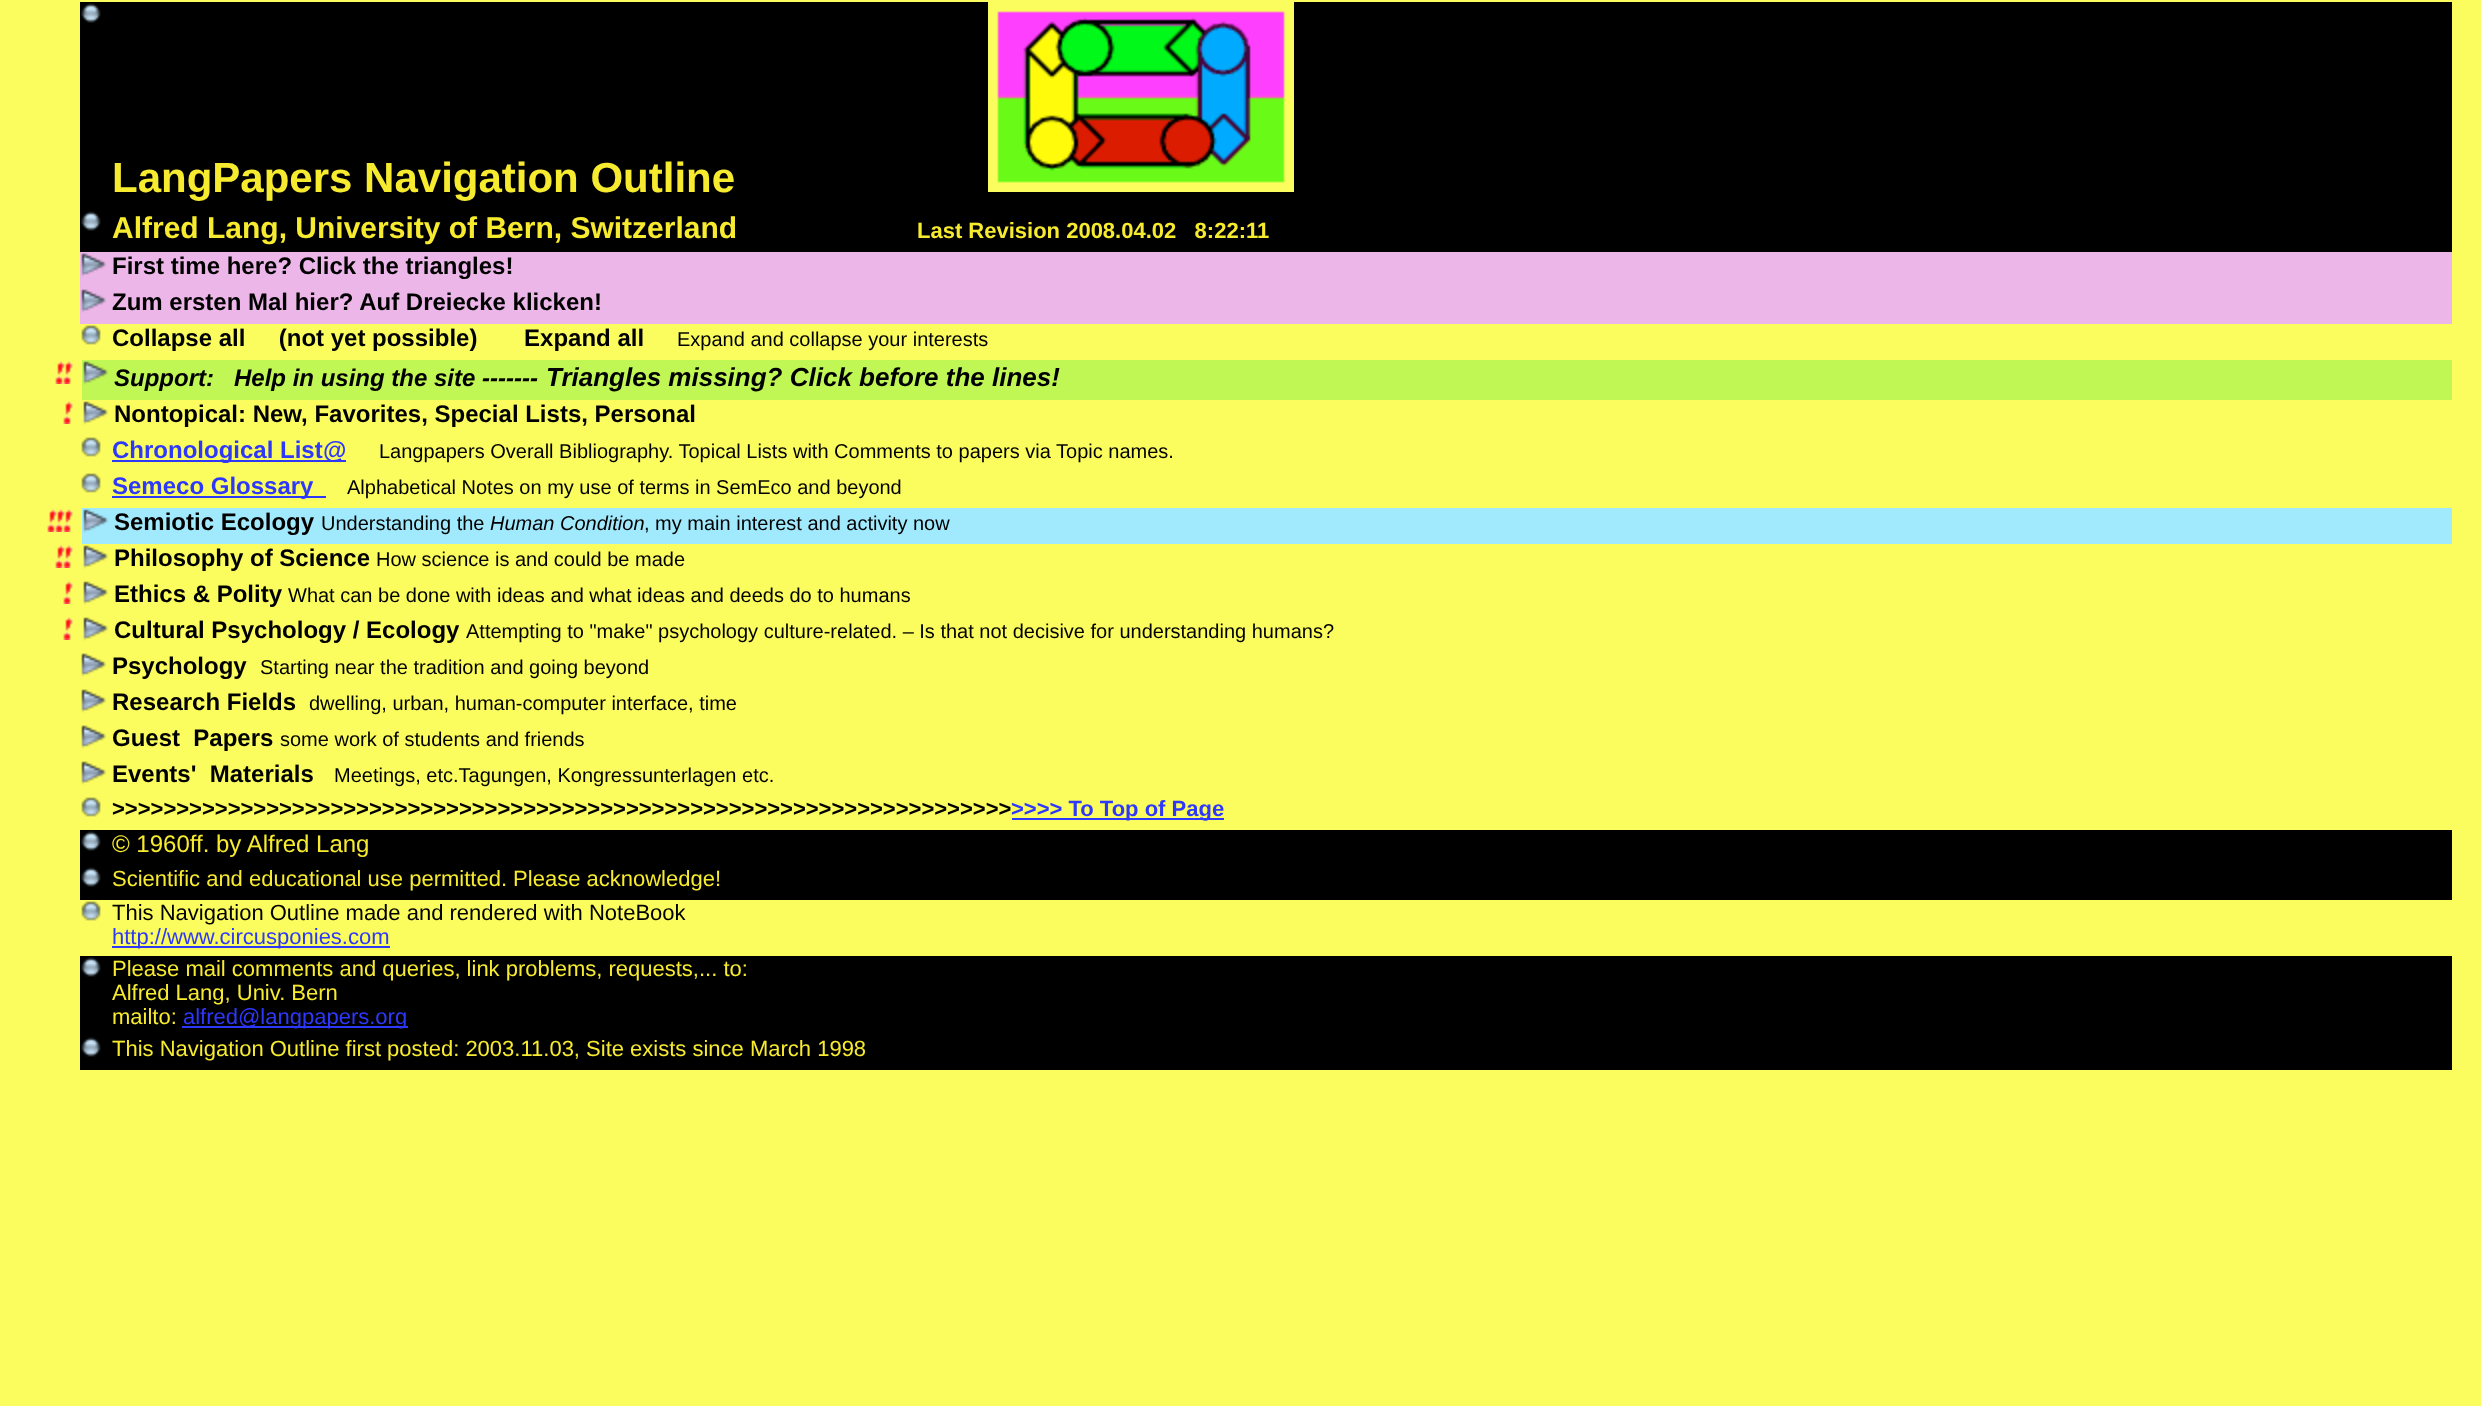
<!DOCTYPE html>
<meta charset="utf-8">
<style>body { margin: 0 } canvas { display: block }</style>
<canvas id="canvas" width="2481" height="1406"></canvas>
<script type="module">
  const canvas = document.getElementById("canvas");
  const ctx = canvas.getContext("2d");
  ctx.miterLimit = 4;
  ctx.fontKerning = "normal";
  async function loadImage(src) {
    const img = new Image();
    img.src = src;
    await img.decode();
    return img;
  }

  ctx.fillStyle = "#fbfc5d";
  ctx.fillRect(0, 0, 2481, 1406);
  ctx.fillStyle = "#000000";
  ctx.fillRect(80, 2, 2372, 208);
  ctx.drawImage(await loadImage("img1.png"), 81, 3, 20, 20);
  ctx.font = "bold 42px Liberation Sans";
  ctx.fillStyle = "#f7eb30";
  ctx.fillText("LangPapers Navigation Outline", 112, 192);
  ctx.drawImage(await loadImage("img2.png"), 988, 2, 306, 190);
  ctx.fillStyle = "#000000";
  ctx.fillRect(80, 210, 2372, 42);
  ctx.drawImage(await loadImage("img1.png"), 81, 211, 20, 20);
  ctx.font = "bold 30px Liberation Sans";
  ctx.fillStyle = "#f7eb30";
  ctx.fillText("Alfred Lang, University of Bern, Switzerland", 112, 238);
  ctx.font = "bold 22px Liberation Sans";
  ctx.fillText("Last Revision 2008.04.02   8:22:11", 917, 238);
  ctx.fillStyle = "#ecb6e9";
  ctx.fillRect(80, 252, 2372, 36);
  ctx.drawImage(await loadImage("img3.png"), 81, 253, 25, 24);
  ctx.font = "bold 24px Liberation Sans";
  ctx.fillStyle = "#000000";
  ctx.fillText("First time here? Click the triangles!", 112, 274);
  ctx.fillStyle = "#ecb6e9";
  ctx.fillRect(80, 288, 2372, 36);
  ctx.drawImage(await loadImage("img3.png"), 81, 289, 25, 24);
  ctx.fillStyle = "#000000";
  ctx.fillText("Zum ersten Mal hier? Auf Dreiecke klicken!", 112, 310);
  ctx.drawImage(await loadImage("img4.png"), 81, 325, 20, 20);
  ctx.fillText("Collapse all     (not yet possible)       Expand all", 112, 346);
  ctx.font = "20px Liberation Sans";
  ctx.fillText("Expand and collapse your interests", 677, 346);
  ctx.drawImage(await loadImage("img5.png"), 55, 361, 18, 23);
  ctx.fillStyle = "#c0f755";
  ctx.fillRect(82, 360, 2370, 40);
  ctx.drawImage(await loadImage("img6.png"), 83, 361, 25, 24);
  ctx.font = "italic bold 24px Liberation Sans";
  ctx.fillStyle = "#000000";
  ctx.fillText("Support:   Help in using the site -------", 114, 386);
  ctx.font = "italic bold 26px Liberation Sans";
  ctx.fillText("Triangles missing? Click before the lines!", 546, 386);
  ctx.drawImage(await loadImage("img7.png"), 63, 401, 10, 23);
  ctx.drawImage(await loadImage("img8.png"), 83, 401, 25, 24);
  ctx.font = "bold 24px Liberation Sans";
  ctx.fillText("Nontopical: New, Favorites, Special Lists, Personal", 114, 422);
  ctx.drawImage(await loadImage("img4.png"), 81, 437, 20, 20);
  ctx.fillStyle = "#2e38fb";
  ctx.fillRect(112, 460, 210, 2);
  ctx.fillText("Chronological List", 112, 458);
  ctx.fillRect(322, 460, 24, 2);
  ctx.fillText("@", 323, 458);
  ctx.font = "20px Liberation Sans";
  ctx.fillStyle = "#000000";
  ctx.fillText("Langpapers Overall Bibliography. Topical Lists with Comments to papers via Topic names.", 379, 458);
  ctx.drawImage(await loadImage("img4.png"), 81, 473, 20, 20);
  ctx.fillStyle = "#2e38fb";
  ctx.fillRect(112, 496, 214, 2);
  ctx.font = "bold 24px Liberation Sans";
  ctx.fillText("Semeco Glossary", 112, 494);
  ctx.font = "20px Liberation Sans";
  ctx.fillStyle = "#000000";
  ctx.fillText("Alphabetical Notes on my use of terms in SemEco and beyond", 347, 494);
  ctx.drawImage(await loadImage("img9.png"), 47, 509, 26, 23);
  ctx.fillStyle = "#a1eafd";
  ctx.fillRect(82, 508, 2370, 36);
  ctx.drawImage(await loadImage("img10.png"), 83, 509, 25, 24);
  ctx.font = "bold 24px Liberation Sans";
  ctx.fillStyle = "#000000";
  ctx.fillText("Semiotic Ecology", 114, 530);
  ctx.font = "20px Liberation Sans";
  ctx.fillText("Understanding the", 321, 530);
  ctx.font = "italic 20px Liberation Sans";
  ctx.fillText("Human Condition", 490, 530);
  ctx.font = "20px Liberation Sans";
  ctx.fillText(", my main interest and activity now", 644, 530);
  ctx.drawImage(await loadImage("img5.png"), 55, 545, 18, 23);
  ctx.drawImage(await loadImage("img8.png"), 83, 545, 25, 24);
  ctx.font = "bold 24px Liberation Sans";
  ctx.fillText("Philosophy of Science", 114, 566);
  ctx.font = "20px Liberation Sans";
  ctx.fillText("How science is and could be made", 376, 566);
  ctx.drawImage(await loadImage("img7.png"), 63, 581, 10, 23);
  ctx.drawImage(await loadImage("img8.png"), 83, 581, 25, 24);
  ctx.font = "bold 24px Liberation Sans";
  ctx.fillText("Ethics & Polity", 114, 602);
  ctx.font = "20px Liberation Sans";
  ctx.fillText("What can be done with ideas and what ideas and deeds do to humans", 288, 602);
  ctx.drawImage(await loadImage("img7.png"), 63, 617, 10, 23);
  ctx.drawImage(await loadImage("img8.png"), 83, 617, 25, 24);
  ctx.font = "bold 24px Liberation Sans";
  ctx.fillText("Cultural Psychology / Ecology", 114, 638);
  ctx.font = "20px Liberation Sans";
  ctx.fillText("Attempting to \"make\" psychology culture-related. – Is that not decisive for understanding humans?", 466, 638);
  ctx.drawImage(await loadImage("img8.png"), 81, 653, 25, 24);
  ctx.font = "bold 24px Liberation Sans";
  ctx.fillText("Psychology", 112, 674);
  ctx.font = "20px Liberation Sans";
  ctx.fillText("Starting near the tradition and going beyond", 260, 674);
  ctx.drawImage(await loadImage("img8.png"), 81, 689, 25, 24);
  ctx.font = "bold 24px Liberation Sans";
  ctx.fillText("Research Fields", 112, 710);
  ctx.font = "20px Liberation Sans";
  ctx.fillText("dwelling, urban, human-computer interface, time", 309, 710);
  ctx.drawImage(await loadImage("img8.png"), 81, 725, 25, 24);
  ctx.font = "bold 24px Liberation Sans";
  ctx.fillText("Guest  Papers", 112, 746);
  ctx.font = "20px Liberation Sans";
  ctx.fillText("some work of students and friends", 280, 746);
  ctx.drawImage(await loadImage("img8.png"), 81, 761, 25, 24);
  ctx.font = "bold 24px Liberation Sans";
  ctx.fillText("Events'  Materials", 112, 782);
  ctx.font = "20px Liberation Sans";
  ctx.fillText("Meetings, etc.Tagungen, Kongressunterlagen etc.", 334, 782);
  ctx.drawImage(await loadImage("img4.png"), 81, 797, 20, 20);
  ctx.font = "bold 22px Liberation Sans";
  ctx.fillText(">>>>>>>>>>>>>>>>>>>>>>>>>>>>>>>>>>>>>>>>>>>>>>>>>>>>>>>>>>>>>>>>>>>>>>", 112, 816);
  ctx.fillStyle = "#2e38fb";
  ctx.fillRect(1012, 818, 212, 2);
  ctx.fillText(">>>> To Top of Page", 1011, 816);
  ctx.fillStyle = "#000000";
  ctx.fillRect(80, 830, 2372, 36);
  ctx.drawImage(await loadImage("img1.png"), 81, 831, 20, 20);
  ctx.font = "24px Liberation Sans";
  ctx.fillStyle = "#f7eb30";
  ctx.fillText("© 1960ff. by Alfred Lang", 112, 852);
  ctx.fillStyle = "#000000";
  ctx.fillRect(80, 866, 2372, 34);
  ctx.drawImage(await loadImage("img1.png"), 81, 867, 20, 20);
  ctx.font = "22px Liberation Sans";
  ctx.fillStyle = "#f7eb30";
  ctx.fillText("Scientific and educational use permitted. Please acknowledge!", 112, 886);
  ctx.drawImage(await loadImage("img4.png"), 81, 901, 20, 20);
  ctx.fillStyle = "#000000";
  ctx.fillText("This Navigation Outline made and rendered with NoteBook", 112, 920);
  ctx.fillStyle = "#2e38fb";
  ctx.fillRect(112, 946, 278, 2);
  ctx.fillText("http://www.circusponies.com", 112, 944);
  ctx.fillStyle = "#000000";
  ctx.fillRect(80, 956, 2372, 80);
  ctx.drawImage(await loadImage("img1.png"), 81, 957, 20, 20);
  ctx.fillStyle = "#f7eb30";
  ctx.fillText("Please mail comments and queries, link problems, requests,... to:", 112, 976);
  ctx.fillText("Alfred Lang, Univ. Bern", 112, 1000);
  ctx.fillText("mailto:", 112, 1024);
  ctx.fillStyle = "#2e38fb";
  ctx.fillRect(182, 1026, 226, 2);
  ctx.fillText("alfred@langpapers.org", 183, 1024);
  ctx.fillStyle = "#000000";
  ctx.fillRect(80, 1036, 2372, 34);
  ctx.drawImage(await loadImage("img1.png"), 81, 1037, 20, 20);
  ctx.fillStyle = "#f7eb30";
  ctx.fillText("This Navigation Outline first posted: 2003.11.03, Site exists since March 1998", 112, 1056);
</script>
